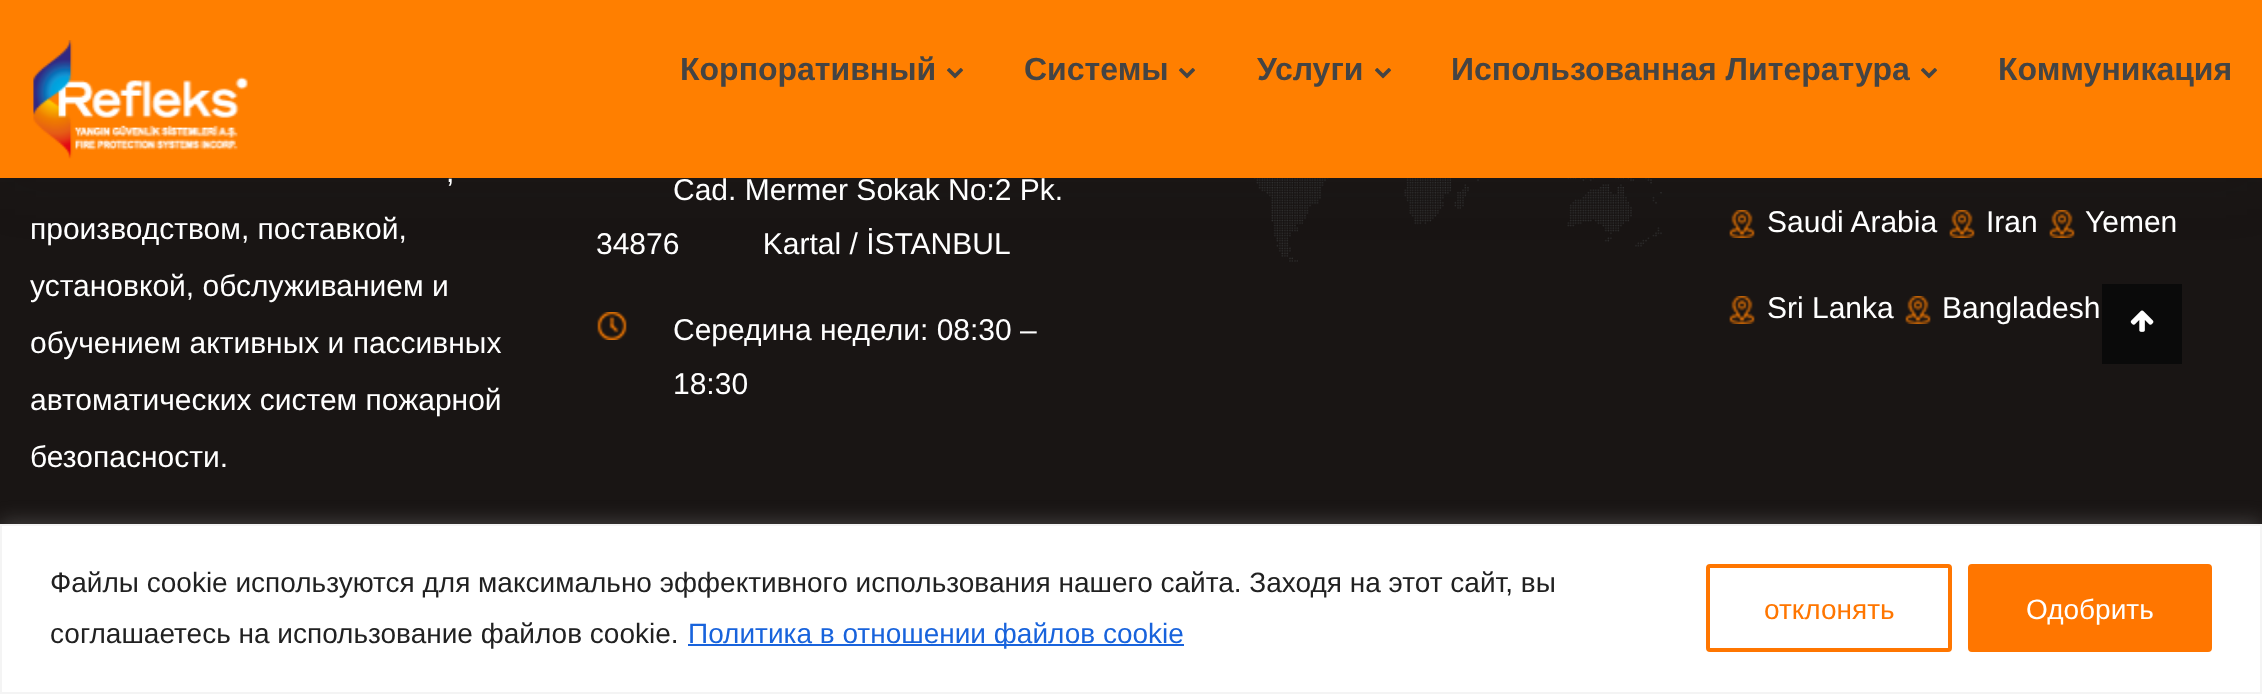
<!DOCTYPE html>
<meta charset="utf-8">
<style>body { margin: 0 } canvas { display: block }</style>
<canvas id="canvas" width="2262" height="694"></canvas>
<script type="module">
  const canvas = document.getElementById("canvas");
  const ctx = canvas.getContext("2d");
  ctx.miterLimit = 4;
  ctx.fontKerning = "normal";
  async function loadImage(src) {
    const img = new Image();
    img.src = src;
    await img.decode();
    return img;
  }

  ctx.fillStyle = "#191514";
  ctx.fillRect(0, 0, 2262, 694);
  ctx.drawImage(await loadImage("img4.png"), 1253, 178, 409, 84);
  ctx.drawImage(await loadImage("img5.png"), 1729, 210, 26, 28);
  ctx.drawImage(await loadImage("img5.png"), 1949, 210, 26, 28);
  ctx.drawImage(await loadImage("img5.png"), 2049, 210, 26, 28);
  ctx.fillStyle = "rgba(34, 34, 34, 0.14)";
  ctx.filter = "blur(29px)";
  ctx.beginPath();
  ctx.rect(0, 4, 2262, 178);
  ctx.fill();
  ctx.filter = "none";
  ctx.fillStyle = "#ff7f00";
  ctx.fillRect(0, 0, 2262, 178);
  ctx.drawImage(await loadImage("img1.png"), 33, 40, 216, 119);
  ctx.font = "bold 32px Liberation Sans";
  ctx.fillStyle = "#444444";
  ctx.fillText("Корпоративный", 680, 80);
  ctx.drawImage(await loadImage("img2.png"), 946, 68, 18, 11);
  ctx.fillText("Системы", 1024, 80);
  ctx.drawImage(await loadImage("img2.png"), 1178, 68, 18, 11);
  ctx.fillText("Услуги", 1257, 80);
  ctx.drawImage(await loadImage("img2.png"), 1374, 68, 18, 11);
  ctx.fillText("Использованная Литература", 1451, 80);
  ctx.drawImage(await loadImage("img2.png"), 1920, 68, 18, 11);
  ctx.fillText("Коммуникация", 1998, 80);
  ctx.font = "30px Liberation Sans";
  ctx.fillStyle = "#ffffff";
  ctx.fillText(",", 446, 182);
  ctx.fillText("производством, поставкой,", 30, 239);
  ctx.fillText("установкой, обслуживанием и", 30, 296);
  ctx.fillText("обучением активных и пассивных", 30, 353);
  ctx.fillText("автоматических систем пожарной", 30, 410);
  ctx.fillText("безопасности.", 30, 467);
  ctx.fillText("Cad. Mermer Sokak No:2 Pk.", 673, 200);
  ctx.fillText("34876          Kartal / İSTANBUL", 596, 254);
  ctx.drawImage(await loadImage("img3.png"), 597, 312, 30, 28);
  ctx.fillText("Середина недели: 08:30 –", 673, 340);
  ctx.fillText("18:30", 673, 394);
  ctx.fillText("Saudi Arabia", 1767, 232);
  ctx.fillText("Iran", 1986, 232);
  ctx.fillText("Yemen", 2085, 232);
  ctx.drawImage(await loadImage("img5.png"), 1729, 296, 26, 28);
  ctx.fillText("Sri Lanka", 1767, 318);
  ctx.drawImage(await loadImage("img5.png"), 1905, 296, 26, 28);
  ctx.fillText("Bangladesh", 1942, 318);
  ctx.fillStyle = "#0a0a0a";
  ctx.fillRect(2102, 284, 80, 80);
  ctx.drawImage(await loadImage("img6.png"), 2130, 310, 24, 22);
  ctx.fillStyle = "rgba(172, 171, 171, 0.3)";
  ctx.filter = "blur(10px)";
  ctx.beginPath();
  ctx.rect(0, 522, 2262, 170);
  ctx.fill();
  ctx.filter = "none";
  ctx.fillStyle = "#ffffff";
  ctx.beginPath();
  ctx.rect(1, 525, 2260, 168);
  ctx.fill();
  ctx.strokeStyle = "#f4f4f4";
  ctx.lineWidth = 2;
  ctx.stroke();
  ctx.font = "28px Liberation Sans";
  ctx.fillStyle = "#212121";
  ctx.fillText("Файлы cookie используются для максимально эффективного использования нашего сайта. Заходя на этот сайт, вы", 50, 592);
  ctx.fillText("соглашаетесь на использование файлов cookie.", 50, 643);
  ctx.fillStyle = "#1863dc";
  ctx.fillRect(688, 644, 496, 2);
  ctx.fillText("Политика в отношении файлов cookie", 688, 643);
  ctx.beginPath();
  ctx.roundRect(1708, 566, 242, 84, 2);
  ctx.strokeStyle = "#ff7600";
  ctx.lineWidth = 4;
  ctx.stroke();
  ctx.fillStyle = "#ff7600";
  ctx.fillText("отклонять", 1764, 619);
  ctx.beginPath();
  ctx.roundRect(1970, 566, 240, 84, 2);
  ctx.fill();
  ctx.stroke();
  ctx.fillStyle = "#ffffff";
  ctx.fillText("Одобрить", 2026, 619);
</script>
